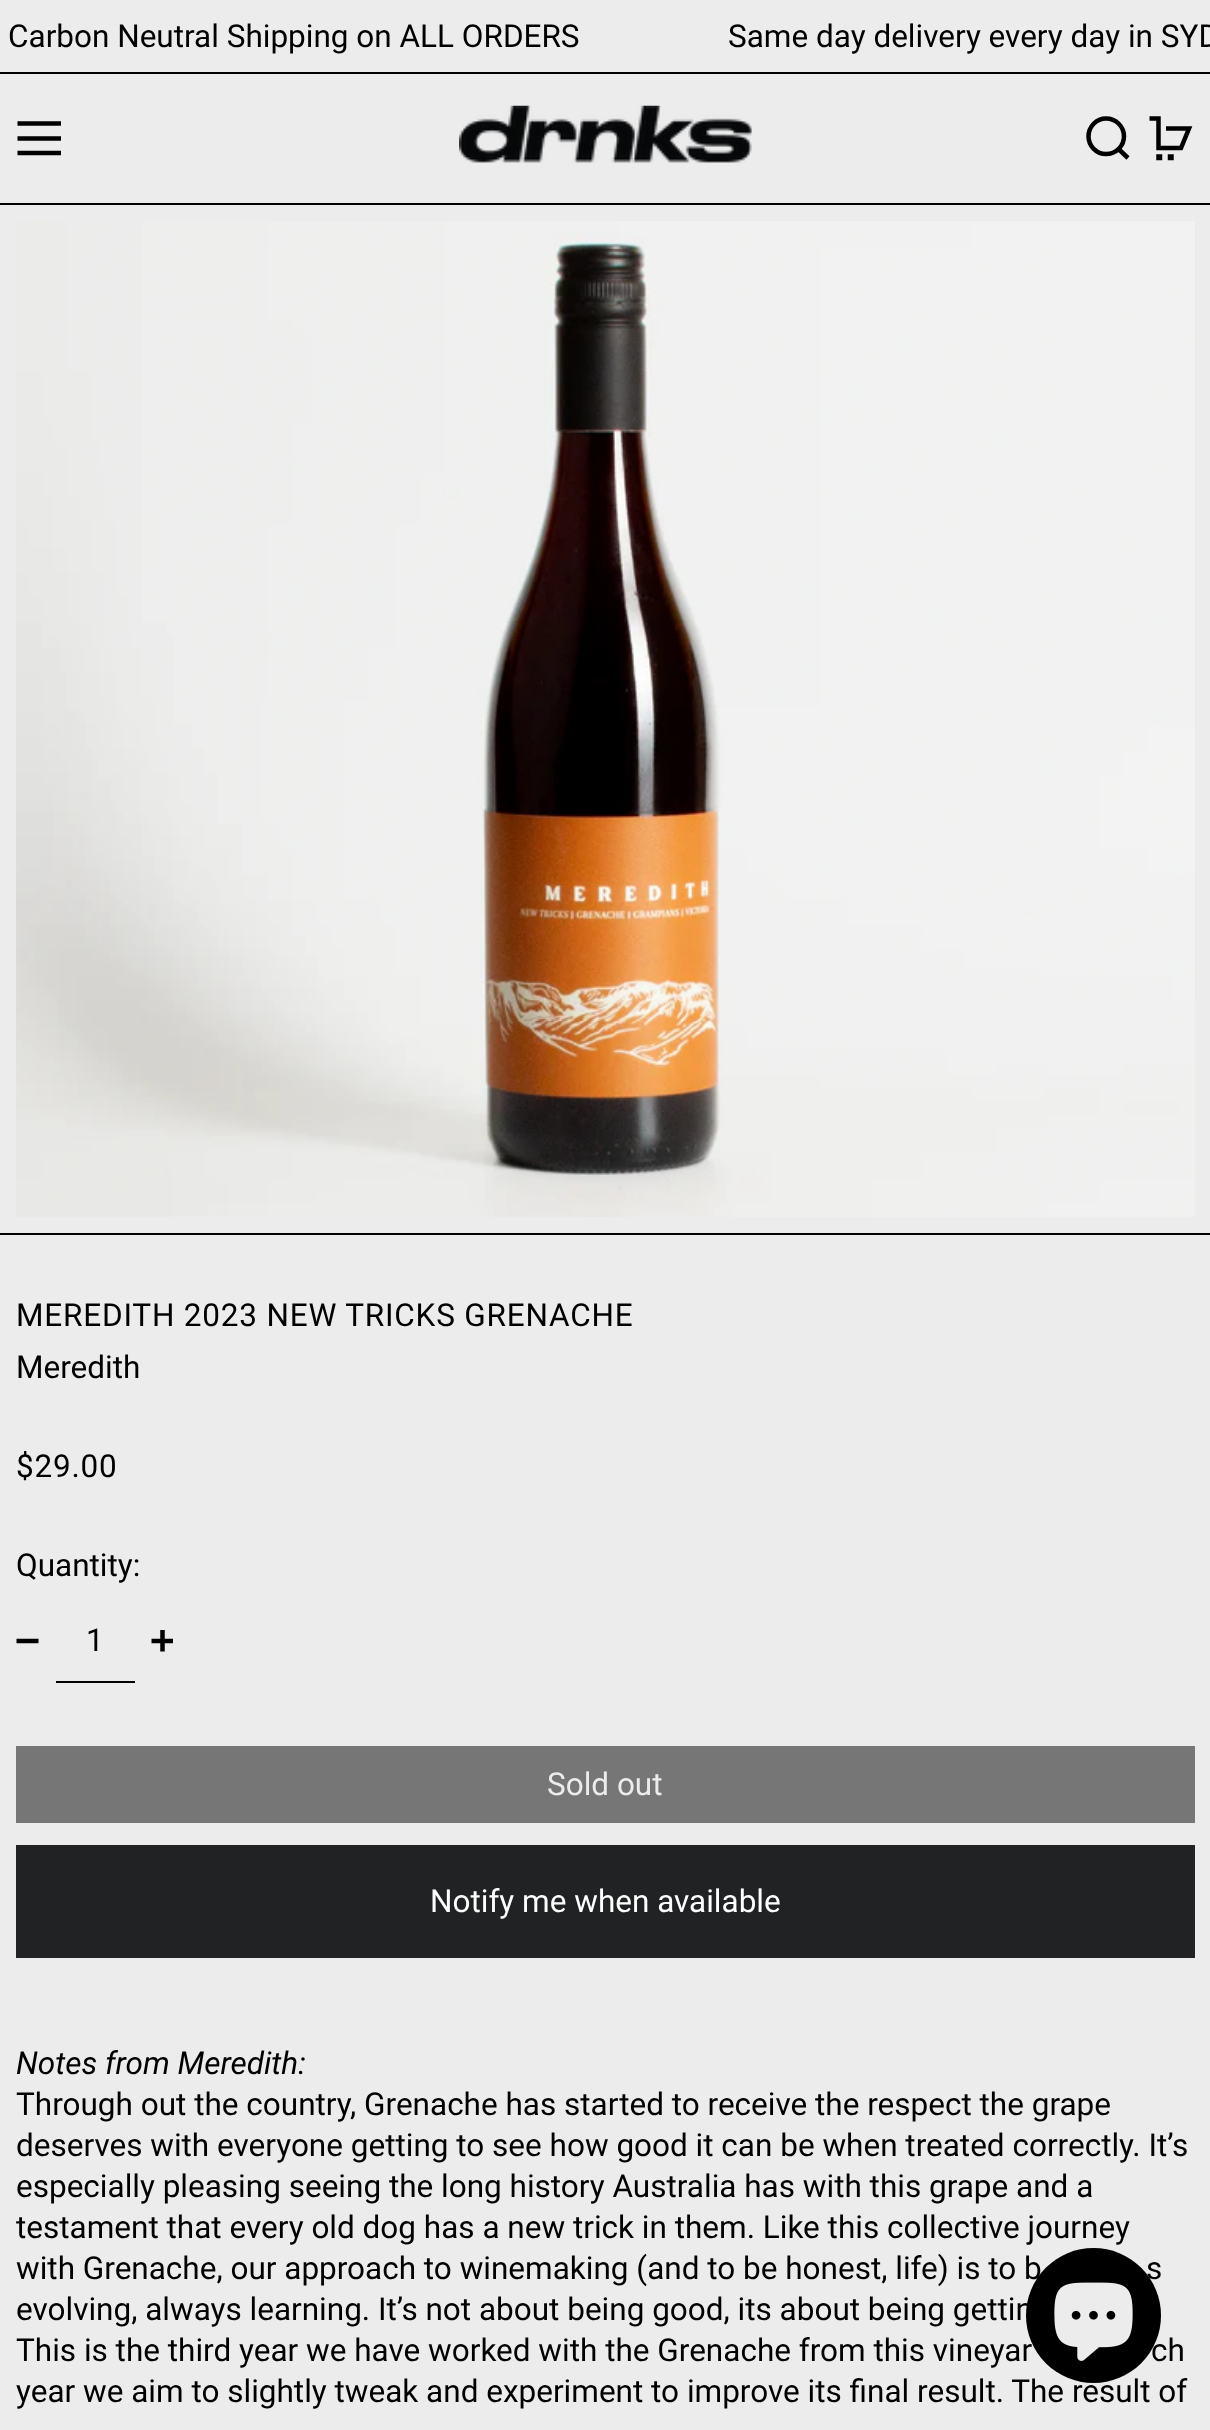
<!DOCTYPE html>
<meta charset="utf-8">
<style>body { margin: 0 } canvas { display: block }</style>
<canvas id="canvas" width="1210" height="2430"></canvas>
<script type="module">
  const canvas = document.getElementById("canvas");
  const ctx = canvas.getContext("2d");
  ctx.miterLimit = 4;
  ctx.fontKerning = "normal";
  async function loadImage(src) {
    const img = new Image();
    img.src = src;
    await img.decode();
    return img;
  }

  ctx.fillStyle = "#ececec";
  ctx.fillRect(0, 0, 1210, 2430);
  ctx.fillStyle = "#000000";
  ctx.fillRect(0, 72, 1210, 2);
  ctx.font = "31.5px Roboto";
  ctx.fillText("Carbon Neutral Shipping on ALL ORDERS                   Same day delivery every day in SYD", 8, 47);
  ctx.fillRect(0, 203, 1210, 2);
  ctx.beginPath();
  ctx.moveTo(17.5, 123.5);
  ctx.lineTo(61, 123.5);
  ctx.moveTo(17.5, 138.5);
  ctx.lineTo(61, 138.5);
  ctx.moveTo(17.5, 153);
  ctx.lineTo(61, 153);
  ctx.strokeStyle = "#000000";
  ctx.lineWidth = 4.5;
  ctx.stroke();
  ctx.drawImage(await loadImage("img1.png"), 459, 105, 293, 58);
  ctx.beginPath();
  ctx.moveTo(1088.5, 136.5);
  ctx.bezierCurveTo(1088.5, 146, 1096.5, 154, 1106, 154);
  ctx.bezierCurveTo(1116, 154, 1124, 146, 1124, 136.5);
  ctx.bezierCurveTo(1124, 126.5, 1116, 118.5, 1106, 118.5);
  ctx.bezierCurveTo(1096.5, 118.5, 1088.5, 126.5, 1088.5, 136.5);
  ctx.closePath();
  ctx.moveTo(1118.5, 149);
  ctx.lineTo(1128, 158);
  ctx.stroke();
  ctx.beginPath();
  ctx.moveTo(1149.5, 118.5);
  ctx.lineTo(1158.5, 118.5);
  ctx.lineTo(1158.5, 148);
  ctx.lineTo(1181, 148);
  ctx.lineTo(1189, 128.5);
  ctx.lineTo(1166, 128.5);
  ctx.moveTo(1158.5, 158);
  ctx.lineTo(1158.5, 156.5);
  ctx.lineTo(1160, 156.5);
  ctx.lineTo(1160, 158);
  ctx.closePath();
  ctx.moveTo(1170, 158);
  ctx.lineTo(1170, 156.5);
  ctx.lineTo(1171.5, 156.5);
  ctx.lineTo(1171.5, 158);
  ctx.closePath();
  ctx.stroke();
  ctx.fillRect(0, 1233, 1210, 2);
  ctx.drawImage(await loadImage("img2.png"), 16, 221, 1179, 996);
  ctx.letterSpacing = "0.8px";
  ctx.fillText("MEREDITH 2023 NEW TRICKS GRENACHE", 16, 1326);
  ctx.letterSpacing = "0px";
  ctx.fillText("Meredith", 16, 1378);
  ctx.letterSpacing = "0.8px";
  ctx.fillText("$29.00", 16, 1477);
  ctx.letterSpacing = "0px";
  ctx.fillText("Quantity:", 16, 1576);
  ctx.beginPath();
  ctx.moveTo(16.5, 1641);
  ctx.lineTo(38.5, 1641);
  ctx.stroke();
  ctx.fillRect(56, 1681, 79, 2);
  ctx.fillText("1", 86, 1651);
  ctx.save();
  ctx.beginPath();
  ctx.rect(151, 1629, 22, 25);
  ctx.clip();
  ctx.beginPath();
  ctx.moveTo(162.5, 1630);
  ctx.lineTo(162.5, 1651.5);
  ctx.moveTo(151.5, 1641);
  ctx.lineTo(173.5, 1641);
  ctx.stroke();
  ctx.restore();
  ctx.fillStyle = "#767676";
  ctx.fillRect(16, 1746, 1179, 77);
  ctx.fillStyle = "#ececec";
  ctx.fillText("Sold out", 547, 1795);
  ctx.fillStyle = "#202223";
  ctx.fillRect(16, 1845, 1179, 113);
  ctx.fillStyle = "#ffffff";
  ctx.fillText("Notify me when available", 430, 1912);
  ctx.font = "italic 31.5px Roboto";
  ctx.fillStyle = "#000000";
  ctx.fillText("Notes from Meredith:", 16, 2074);
  ctx.font = "31.5px Roboto";
  ctx.fillText("Through out the country, Grenache has started to receive the respect the grape", 16, 2115);
  ctx.fillText("deserves with everyone getting to see how good it can be when treated correctly. It’s", 16, 2156);
  ctx.fillText("especially pleasing seeing the long history Australia has with this grape and a", 16, 2197);
  ctx.fillText("testament that every old dog has a new trick in them. Like this collective journey", 16, 2238);
  ctx.fillText("with Grenache, our approach to winemaking (and to be honest, life) is to b", 16, 2279);
  ctx.fillText("s", 1146, 2279);
  ctx.fillText("evolving, always learning. It’s not about being good, its about being gettin", 16, 2320);
  ctx.fillText("This is the third year we have worked with the Grenache from this vineyar", 16, 2361);
  ctx.fillText("ch", 1151, 2361);
  ctx.fillText("year we aim to slightly tweak and experiment to improve its final result. The result of", 16, 2402);
  ctx.beginPath();
  ctx.arc(1093.5, 2315.5, 67.5, 0, Math.PI * 2);
  ctx.fill();
  ctx.drawImage(await loadImage("img3.png"), 1054, 2282, 79, 79);
</script>
